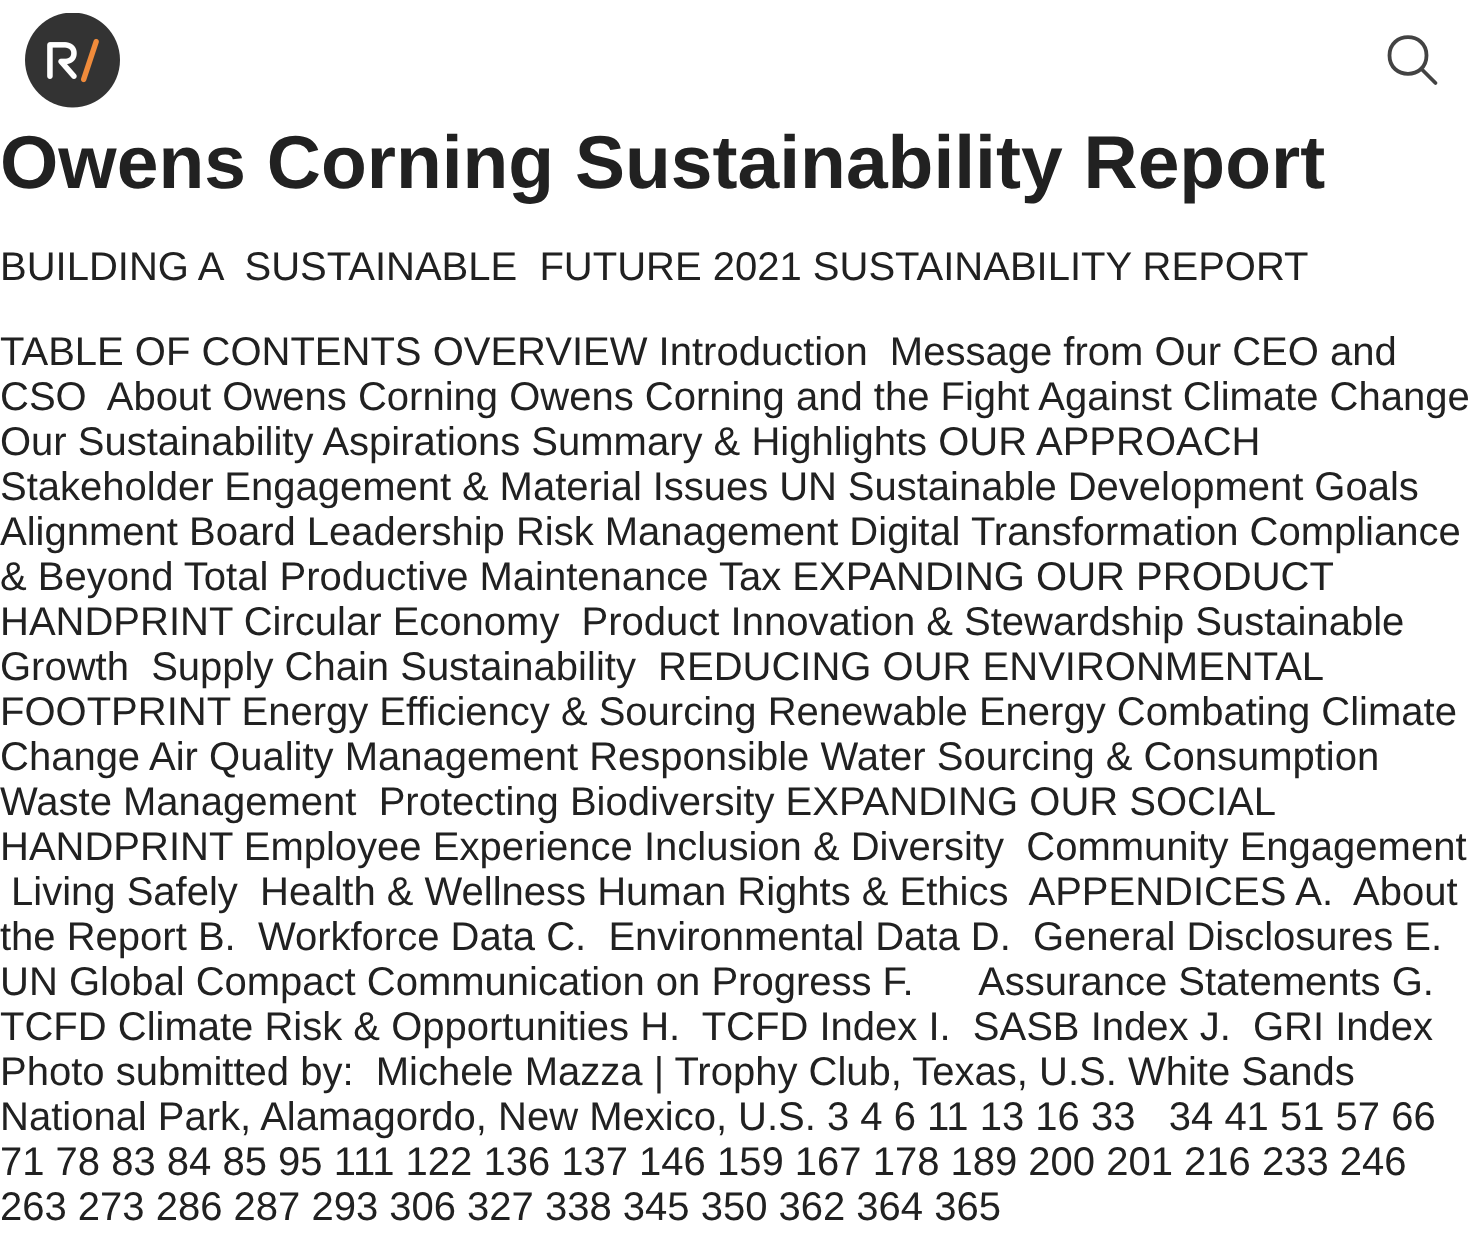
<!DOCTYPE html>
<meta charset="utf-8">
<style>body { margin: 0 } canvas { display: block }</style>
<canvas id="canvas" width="1484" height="1236"></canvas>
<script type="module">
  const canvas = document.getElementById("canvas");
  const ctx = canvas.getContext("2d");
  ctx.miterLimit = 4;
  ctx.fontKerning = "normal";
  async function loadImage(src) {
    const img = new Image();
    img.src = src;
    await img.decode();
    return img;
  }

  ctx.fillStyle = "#ffffff";
  ctx.fillRect(0, 0, 1484, 1236);
  ctx.drawImage(await loadImage("img1.png"), 25, 13, 95, 95);
  ctx.beginPath();
  ctx.moveTo(1389.5, 55.5);
  ctx.bezierCurveTo(1389.5, 80, 1426.5, 80, 1426.5, 55.5);
  ctx.bezierCurveTo(1426.5, 31, 1389.5, 31, 1389.5, 55.5);
  ctx.closePath();
  ctx.moveTo(1421, 68.5);
  ctx.lineTo(1435.5, 83);
  ctx.strokeStyle = "#434343";
  ctx.lineWidth = 3.8;
  ctx.lineCap = "round";
  ctx.lineJoin = "round";
  ctx.stroke();
  ctx.font = "bold 75px Liberation Sans";
  ctx.fillStyle = "#212121";
  ctx.fillText("Owens Corning Sustainability Report", 0, 188);
  ctx.font = "40px Liberation Sans";
  ctx.fillText("BUILDING A  SUSTAINABLE  FUTURE 2021 SUSTAINABILITY REPORT", 0, 280);
  ctx.fillText("TABLE OF CONTENTS OVERVIEW Introduction  Message from Our CEO and", 0, 365);
  ctx.fillText("CSO  About Owens Corning Owens Corning and the Fight Against Climate Change", 0, 410);
  ctx.fillText("Our Sustainability Aspirations Summary & Highlights OUR APPROACH", 0, 455);
  ctx.wordSpacing = "-0.25px";
  ctx.fillText("Stakeholder Engagement & Material Issues UN Sustainable Development Goals", 0, 500);
  ctx.wordSpacing = "0px";
  ctx.fillText("Alignment Board Leadership Risk Management Digital Transformation Compliance", 0, 545);
  ctx.fillText("& Beyond Total Productive Maintenance Tax EXPANDING OUR PRODUCT", 0, 590);
  ctx.fillText("HANDPRINT Circular Economy  Product Innovation & Stewardship Sustainable", 0, 635);
  ctx.fillText("Growth  Supply Chain Sustainability  REDUCING OUR ENVIRONMENTAL", 0, 680);
  ctx.fillText("FOOTPRINT Energy Efficiency & Sourcing Renewable Energy Combating Climate", 0, 725);
  ctx.fillText("Change Air Quality Management Responsible Water Sourcing & Consumption", 0, 770);
  ctx.fillText("Waste Management  Protecting Biodiversity EXPANDING OUR SOCIAL", 0, 815);
  ctx.fillText("HANDPRINT Employee Experience Inclusion & Diversity  Community Engagement", 0, 860);
  ctx.fillText("Living Safely  Health & Wellness Human Rights & Ethics  APPENDICES A.  About", 11, 905);
  ctx.fillText("the Report B.  Workforce Data C.  Environmental Data D.  General Disclosures E.", 0, 950);
  ctx.fillText("UN Global Compact Communication on Progress F.      Assurance Statements G.", 0, 995);
  ctx.fillText("TCFD Climate Risk & Opportunities H.  TCFD Index I.  SASB Index J.  GRI Index", 0, 1040);
  ctx.fillText("Photo submitted by:  Michele Mazza | Trophy Club, Texas, U.S. White Sands", 0, 1085);
  ctx.fillText("National Park, Alamagordo, New Mexico, U.S. 3 4 6 11 13 16 33   34 41 51 57 66", 0, 1130);
  ctx.fillText("71 78 83 84 85 95 111 122 136 137 146 159 167 178 189 200 201 216 233 246", 0, 1175);
  ctx.fillText("263 273 286 287 293 306 327 338 345 350 362 364 365", 0, 1220);
</script>
